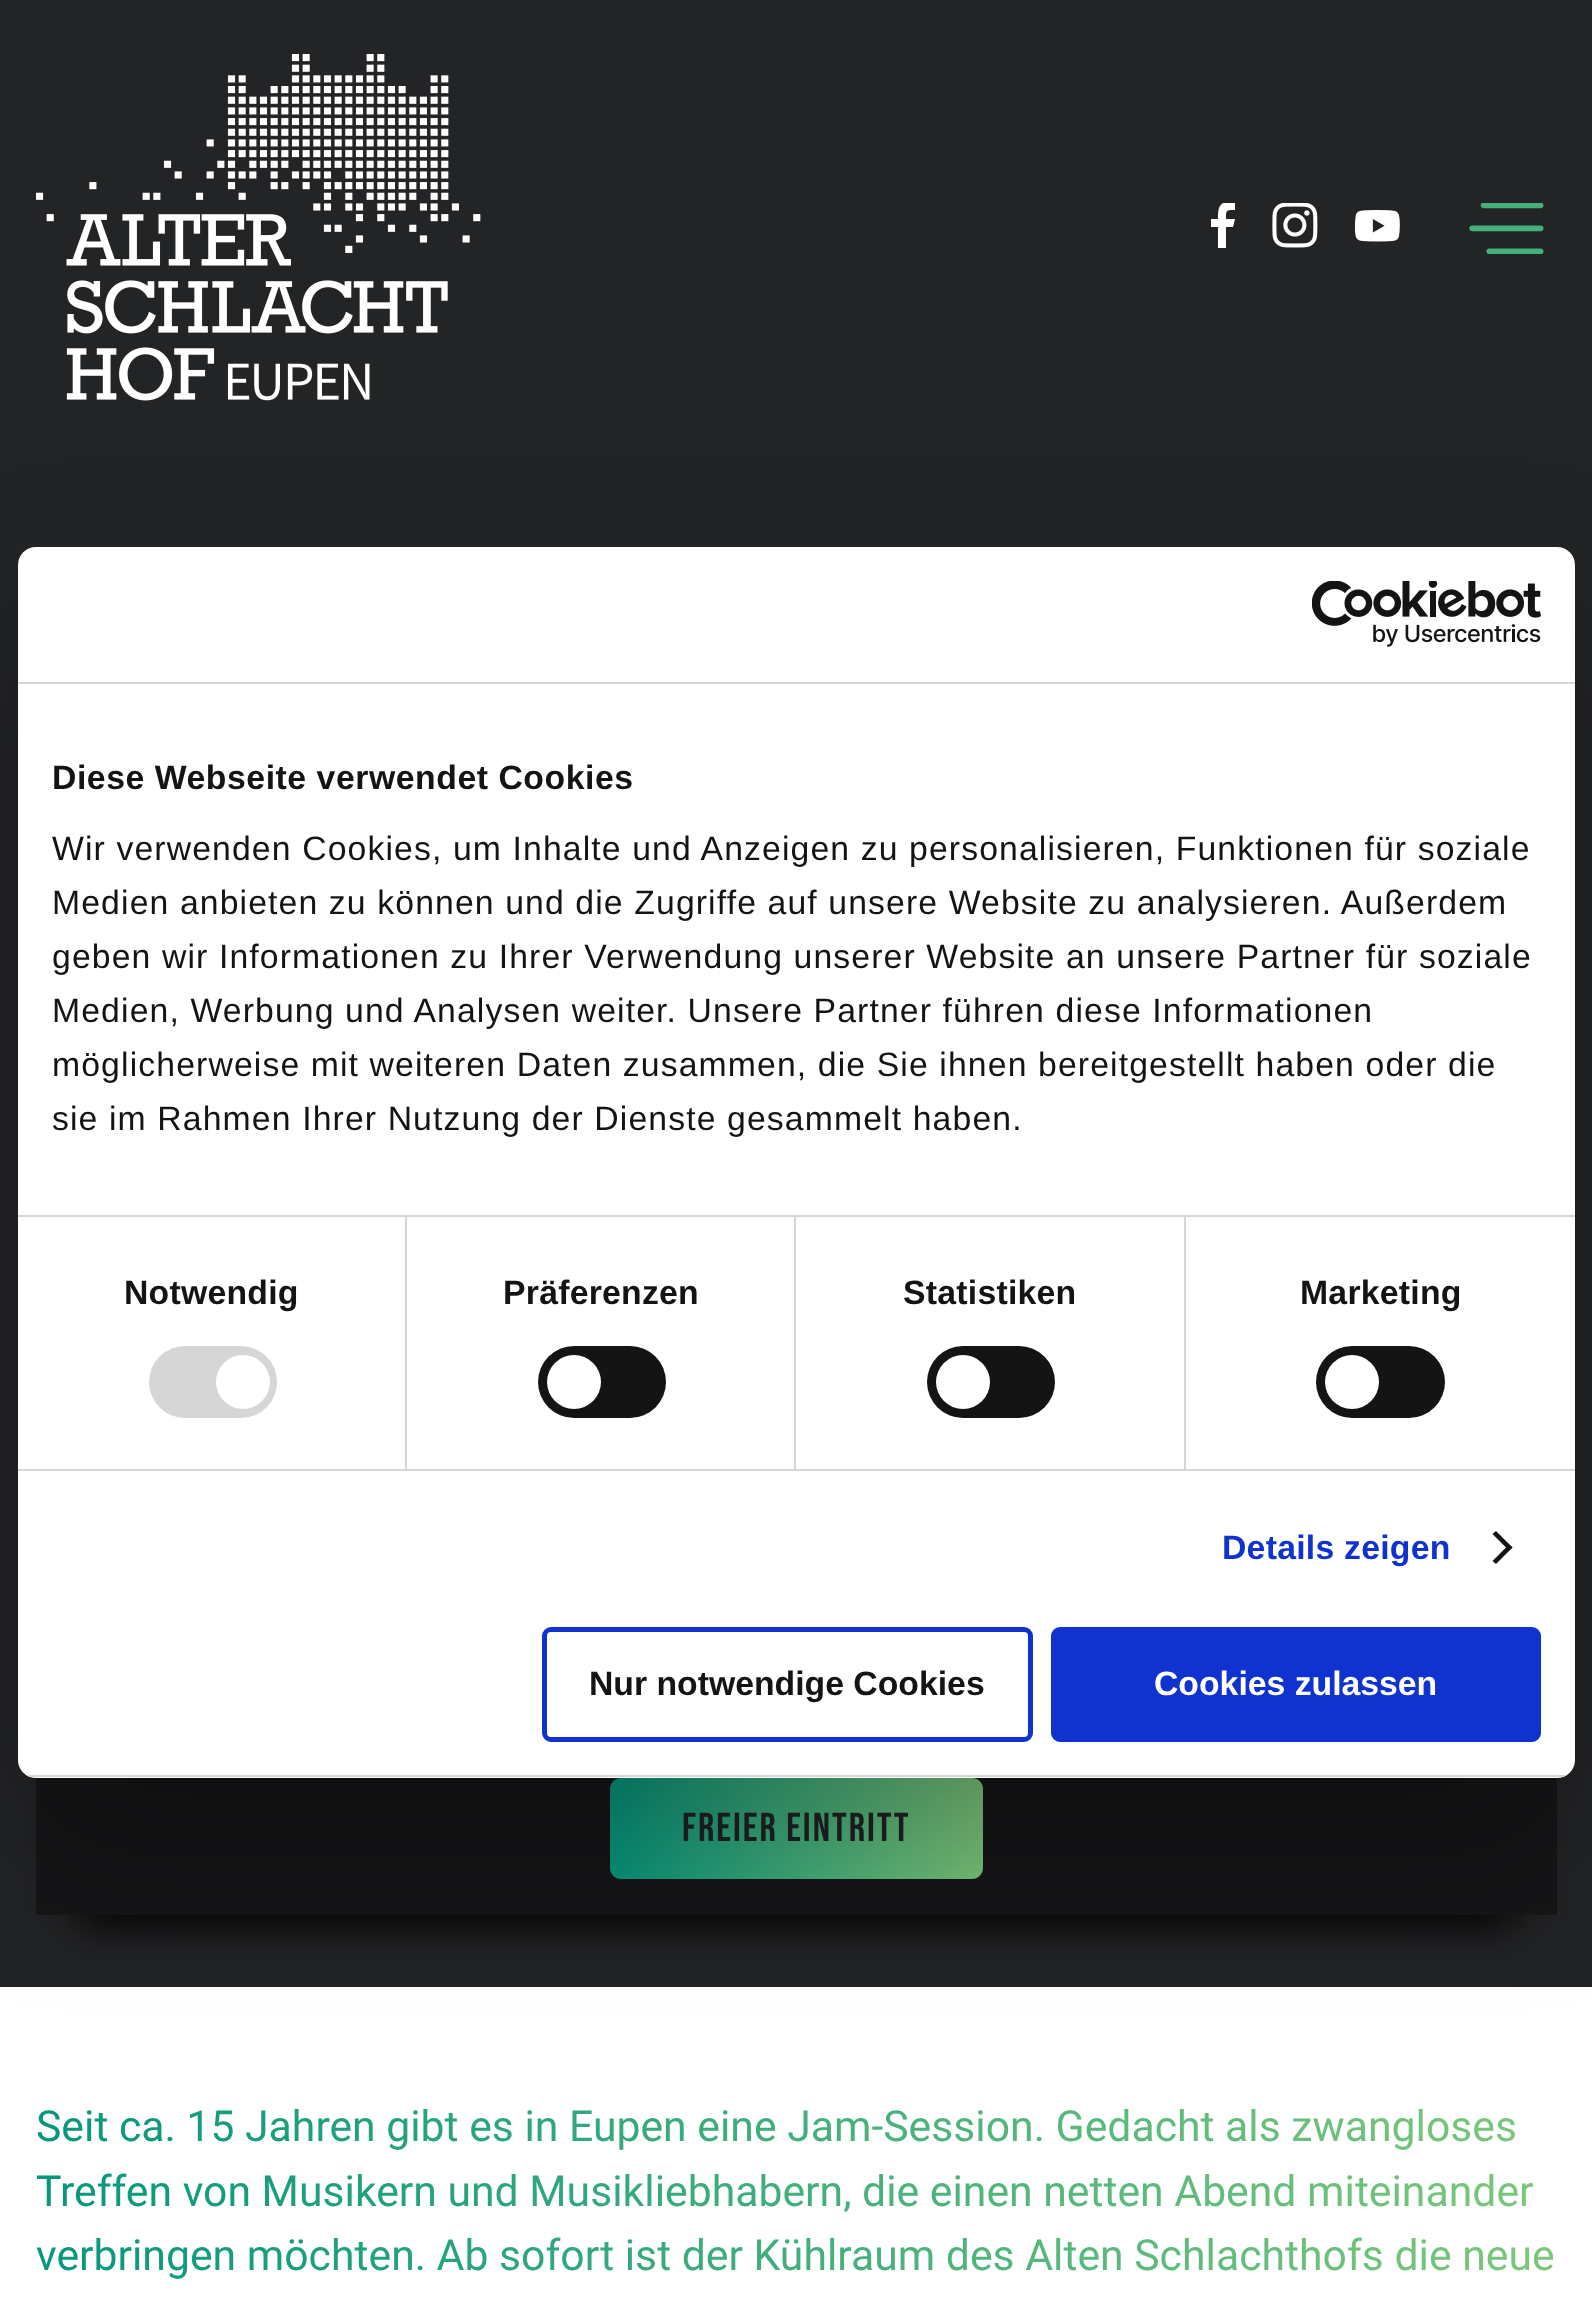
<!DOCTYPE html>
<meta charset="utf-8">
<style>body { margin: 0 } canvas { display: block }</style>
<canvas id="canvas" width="1592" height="2322"></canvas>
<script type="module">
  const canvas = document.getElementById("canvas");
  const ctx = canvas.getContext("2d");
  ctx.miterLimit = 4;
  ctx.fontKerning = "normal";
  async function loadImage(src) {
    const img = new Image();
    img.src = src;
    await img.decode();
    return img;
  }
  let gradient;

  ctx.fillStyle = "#232426";
  ctx.fillRect(0, 0, 1592, 2322);
  ctx.drawImage(await loadImage("img2.png"), 36, 54, 445, 347);
  ctx.fillStyle = "#000000";
  ctx.filter = "blur(22.5px)";
  ctx.beginPath();
  ctx.rect(79, 1739, 1435, 185);
  ctx.fill();
  ctx.filter = "none";
  ctx.fillStyle = "#161618";
  ctx.fillRect(36, 1778, 1521, 137);
  gradient = ctx.createLinearGradient(610, 1828, 983, 1828);
  gradient.addColorStop(0, "#07977d");
  gradient.addColorStop(1, "#7dc77b");
  ctx.fillStyle = gradient;
  ctx.beginPath();
  ctx.roundRect(610, 1778, 373, 101, 11);
  ctx.fill();
  ctx.fillStyle = "#ffffff";
  ctx.fillRect(0, 1987, 1592, 335);
  ctx.fillStyle = "rgba(0, 0, 0, 0.3)";
  ctx.filter = "blur(76.5px)";
  ctx.beginPath();
  ctx.roundRect(18, 619, 1557, 1231, 18);
  ctx.fill();
  ctx.filter = "none";
  ctx.fillStyle = "#ffffff";
  ctx.beginPath();
  ctx.roundRect(18, 547, 1557, 1231, 18);
  ctx.fill();
  ctx.fillStyle = "#d6d6d6";
  ctx.fillRect(18, 682, 1557, 2);
  ctx.drawImage(await loadImage("img1.png"), 1312, 581, 229, 66);
  ctx.fillRect(18, 1215, 1557, 2);
  ctx.letterSpacing = "0.55px";
  ctx.font = "bold 33.75px Liberation Sans";
  ctx.fillStyle = "#141414";
  ctx.fillText("Diese Webseite verwendet Cookies", 52, 789);
  ctx.letterSpacing = "1.12px";
  ctx.font = "33.75px Liberation Sans";
  ctx.fillText("Wir verwenden Cookies, um Inhalte und Anzeigen zu personalisieren, Funktionen für soziale", 52, 860);
  ctx.fillText("Medien anbieten zu können und die Zugriffe auf unsere Website zu analysieren. Außerdem", 52, 914);
  ctx.fillText("geben wir Informationen zu Ihrer Verwendung unserer Website an unsere Partner für soziale", 52, 968);
  ctx.fillText("Medien, Werbung und Analysen weiter. Unsere Partner führen diese Informationen", 52, 1022);
  ctx.fillText("möglicherweise mit weiteren Daten zusammen, die Sie ihnen bereitgestellt haben oder die", 52, 1076);
  ctx.fillText("sie im Rahmen Ihrer Nutzung der Dienste gesammelt haben.", 52, 1130);
  ctx.fillStyle = "#d6d6d6";
  ctx.fillRect(18, 1469, 1557, 2);
  ctx.fillRect(405, 1217, 2, 252);
  ctx.letterSpacing = "0.25px";
  ctx.font = "bold 33.75px Liberation Sans";
  ctx.fillStyle = "#141414";
  ctx.fillText("Notwendig", 124, 1304);
  ctx.fillStyle = "#d6d6d6";
  ctx.beginPath();
  ctx.roundRect(149, 1346, 128, 72, 36);
  ctx.fill();
  ctx.fillStyle = "#ffffff";
  ctx.beginPath();
  ctx.arc(243, 1382, 27, 0, Math.PI * 2);
  ctx.fill();
  ctx.fillStyle = "#d6d6d6";
  ctx.fillRect(794, 1217, 2, 252);
  ctx.fillStyle = "#141414";
  ctx.fillText("Präferenzen", 503, 1304);
  ctx.beginPath();
  ctx.roundRect(538, 1346, 128, 72, 36);
  ctx.fill();
  ctx.fillStyle = "#ffffff";
  ctx.beginPath();
  ctx.arc(574, 1382, 27, 0, Math.PI * 2);
  ctx.fill();
  ctx.fillStyle = "#d6d6d6";
  ctx.fillRect(1184, 1217, 2, 252);
  ctx.fillStyle = "#141414";
  ctx.fillText("Statistiken", 903, 1304);
  ctx.beginPath();
  ctx.roundRect(927, 1346, 128, 72, 36);
  ctx.fill();
  ctx.fillStyle = "#ffffff";
  ctx.beginPath();
  ctx.arc(963, 1382, 27, 0, Math.PI * 2);
  ctx.fill();
  ctx.fillStyle = "#141414";
  ctx.fillText("Marketing", 1300, 1304);
  ctx.beginPath();
  ctx.roundRect(1316, 1346, 129, 72, 36);
  ctx.fill();
  ctx.fillStyle = "#ffffff";
  ctx.beginPath();
  ctx.arc(1352, 1382, 27, 0, Math.PI * 2);
  ctx.fill();
  ctx.fillStyle = "#1032cf";
  ctx.fillText("Details zeigen", 1222, 1559);
  ctx.fillStyle = "#141414";
  ctx.beginPath();
  ctx.moveTo(1496, 1531);
  ctx.lineTo(1512.5, 1547.5);
  ctx.lineTo(1509, 1550.5);
  ctx.lineTo(1492.5, 1534);
  ctx.closePath();
  ctx.fill();
  ctx.beginPath();
  ctx.moveTo(1509, 1544.5);
  ctx.lineTo(1512.5, 1547.5);
  ctx.lineTo(1496, 1564);
  ctx.lineTo(1492.5, 1561);
  ctx.closePath();
  ctx.fill();
  ctx.save();
  ctx.beginPath();
  ctx.roundRect(18, 547, 1557, 1231, 18);
  ctx.clip();
  ctx.fillStyle = "#d6d6d6";
  ctx.fillRect(18, 1775, 1557, 2);
  ctx.restore();
  ctx.beginPath();
  ctx.roundRect(544.5, 1629.5, 486, 110, 6.5);
  ctx.strokeStyle = "#1032cf";
  ctx.lineWidth = 5;
  ctx.stroke();
  ctx.letterSpacing = "0px";
  ctx.fillText("Nur notwendige Cookies", 589, 1695);
  ctx.fillStyle = "#1032cf";
  ctx.beginPath();
  ctx.roundRect(1053.5, 1629.5, 485, 110, 6.5);
  ctx.fill();
  ctx.stroke();
  ctx.fillStyle = "#ffffff";
  ctx.fillText("Cookies zulassen", 1154, 1695);
  ctx.save();
  ctx.beginPath();
  ctx.rect(1211, 203, 24, 45);
  ctx.clip();
  ctx.beginPath();
  ctx.moveTo(1228, 202);
  ctx.bezierCurveTo(1218, 202, 1218, 211, 1218, 219);
  ctx.lineTo(1210, 219);
  ctx.lineTo(1210, 227);
  ctx.lineTo(1218, 227);
  ctx.lineTo(1218, 248);
  ctx.lineTo(1226, 248);
  ctx.lineTo(1226, 227);
  ctx.lineTo(1233, 227);
  ctx.lineTo(1235, 219);
  ctx.lineTo(1226, 219);
  ctx.bezierCurveTo(1226, 210, 1226, 210, 1235, 210);
  ctx.lineTo(1235, 203);
  ctx.closePath();
  ctx.fill();
  ctx.restore();
  ctx.drawImage(await loadImage("img3.png"), 1272, 203, 46, 45);
  ctx.drawImage(await loadImage("img4.png"), 1355, 210, 45, 32);
  ctx.drawImage(await loadImage("img5.png"), 1469, 203, 75, 51);
  ctx.letterSpacing = "2px";
  ctx.font = "40.5px Bebas Neue";
  ctx.fillStyle = "#1a1b1d";
  ctx.fillText("FREIER EINTRITT", 682, 1841);
  ctx.letterSpacing = "0px";
  ctx.font = "42.75px Roboto";
  gradient = ctx.createLinearGradient(36, 2222, 1557, 2222);
  gradient.addColorStop(0, "#07977d");
  gradient.addColorStop(1, "#7dc77b");
  ctx.fillStyle = gradient;
  ctx.fillText("Seit ca. 15 Jahren gibt es in Eupen eine Jam-Session. Gedacht als zwangloses", 36, 2141);
  ctx.fillText("Treffen von Musikern und Musikliebhabern, die einen netten Abend miteinander", 36, 2206);
  ctx.fillText("verbringen möchten. Ab sofort ist der Kühlraum des Alten Schlachthofs die neue", 36, 2270);
</script>
